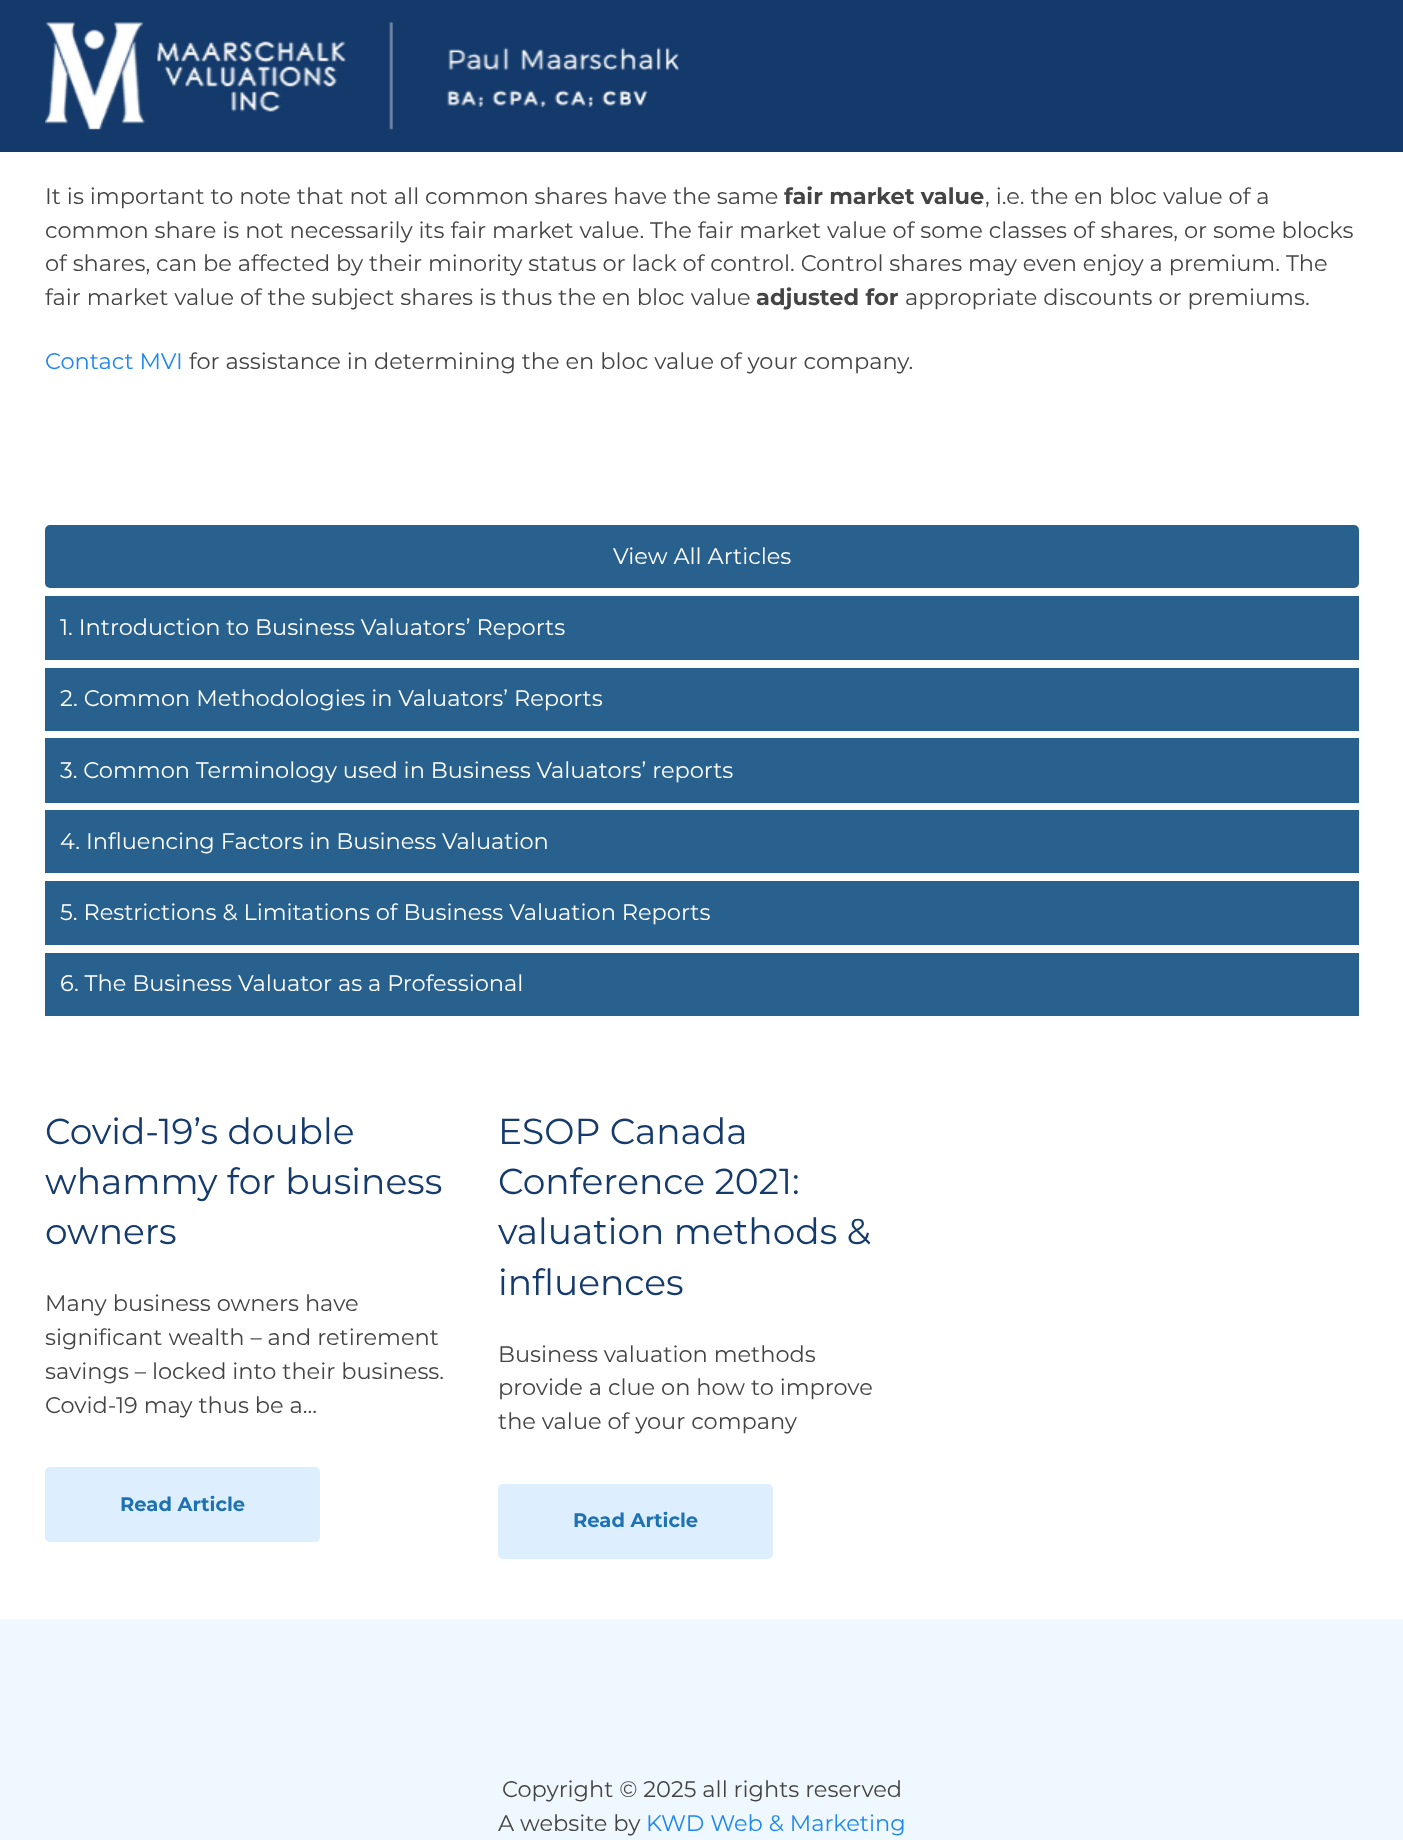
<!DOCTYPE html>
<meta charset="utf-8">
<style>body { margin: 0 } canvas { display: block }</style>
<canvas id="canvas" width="1403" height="1840"></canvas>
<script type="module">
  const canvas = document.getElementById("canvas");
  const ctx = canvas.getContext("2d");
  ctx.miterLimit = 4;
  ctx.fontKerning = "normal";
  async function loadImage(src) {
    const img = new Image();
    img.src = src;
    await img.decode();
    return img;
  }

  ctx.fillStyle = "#ffffff";
  ctx.fillRect(0, 0, 1403, 1840);
  ctx.fillStyle = "#143a6b";
  ctx.fillRect(0, 0, 1403, 152);
  ctx.drawImage(await loadImage("img1.png"), 45, 22, 635, 108);
  ctx.font = "22.5px Montserrat";
  ctx.fillStyle = "#444444";
  ctx.fillText("It is important to note that not all common shares have the same", 45, 204);
  ctx.font = "bold 22.5px Montserrat";
  ctx.fillText("fair market value", 784, 204);
  ctx.font = "22.5px Montserrat";
  ctx.fillText(", i.e. the en bloc value of a", 985, 204);
  ctx.fillText("common share is not necessarily its fair market value. The fair market value of some classes of shares, or some blocks", 45, 238);
  ctx.fillText("of shares, can be affected by their minority status or lack of control. Control shares may even enjoy a premium. The", 45, 271);
  ctx.fillText("fair market value of the subject shares is thus the en bloc value", 45, 305);
  ctx.font = "bold 22.5px Montserrat";
  ctx.fillText("adjusted for", 756, 305);
  ctx.font = "22.5px Montserrat";
  ctx.fillText("appropriate discounts or premiums.", 905, 305);
  ctx.fillStyle = "#1e87f0";
  ctx.fillText("Contact MVI", 45, 369);
  ctx.fillStyle = "#444444";
  ctx.fillText("for assistance in determining the en bloc value of your company.", 189, 369);
  ctx.fillStyle = "#28618e";
  ctx.beginPath();
  ctx.roundRect(45, 525, 1314, 63, 5);
  ctx.fill();
  ctx.fillStyle = "#ffffff";
  ctx.fillText("View All Articles", 613, 564);
  ctx.fillStyle = "#28618e";
  ctx.fillRect(45, 596, 1314, 64);
  ctx.fillStyle = "#ffffff";
  ctx.fillText("1. Introduction to Business Valuators’ Reports", 60, 635);
  ctx.fillStyle = "#28618e";
  ctx.fillRect(45, 668, 1314, 63);
  ctx.fillStyle = "#ffffff";
  ctx.fillText("2. Common Methodologies in Valuators’ Reports", 60, 706);
  ctx.fillStyle = "#28618e";
  ctx.fillRect(45, 738, 1314, 65);
  ctx.fillStyle = "#ffffff";
  ctx.fillText("3. Common Terminology used in Business Valuators’ reports", 60, 778);
  ctx.fillStyle = "#28618e";
  ctx.fillRect(45, 810, 1314, 63);
  ctx.fillStyle = "#ffffff";
  ctx.fillText("4. Influencing Factors in Business Valuation", 60, 849);
  ctx.fillStyle = "#28618e";
  ctx.fillRect(45, 881, 1314, 64);
  ctx.fillStyle = "#ffffff";
  ctx.fillText("5. Restrictions & Limitations of Business Valuation Reports", 60, 920);
  ctx.fillStyle = "#28618e";
  ctx.fillRect(45, 953, 1314, 63);
  ctx.fillStyle = "#ffffff";
  ctx.fillText("6. The Business Valuator as a Professional", 60, 991);
  ctx.font = "36px Montserrat";
  ctx.fillStyle = "#153a6c";
  ctx.fillText("Covid-19’s double", 45, 1144);
  ctx.fillText("whammy for business", 45, 1194);
  ctx.fillText("owners", 45, 1244);
  ctx.font = "22.5px Montserrat";
  ctx.fillStyle = "#444444";
  ctx.fillText("Many business owners have", 45, 1311);
  ctx.fillText("significant wealth – and retirement", 45, 1345);
  ctx.fillText("savings – locked into their business.", 45, 1379);
  ctx.fillText("Covid-19 may thus be a...", 45, 1413);
  ctx.fillStyle = "#ddeeff";
  ctx.beginPath();
  ctx.roundRect(45, 1467, 275, 75, 5);
  ctx.fill();
  ctx.font = "bold 19.5px Montserrat";
  ctx.fillStyle = "#1f72b2";
  ctx.fillText("Read Article", 120, 1511);
  ctx.font = "36px Montserrat";
  ctx.fillStyle = "#153a6c";
  ctx.fillText("ESOP Canada", 498, 1144);
  ctx.fillText("Conference 2021:", 498, 1194);
  ctx.fillText("valuation methods &", 498, 1244);
  ctx.fillText("influences", 498, 1295);
  ctx.font = "22.5px Montserrat";
  ctx.fillStyle = "#444444";
  ctx.fillText("Business valuation methods", 498, 1362);
  ctx.fillText("provide a clue on how to improve", 498, 1395);
  ctx.fillText("the value of your company", 498, 1429);
  ctx.fillStyle = "#ddeeff";
  ctx.beginPath();
  ctx.roundRect(498, 1484, 275, 75, 5);
  ctx.fill();
  ctx.font = "bold 19.5px Montserrat";
  ctx.fillStyle = "#1f72b2";
  ctx.fillText("Read Article", 573, 1527);
  ctx.fillStyle = "#f0f8ff";
  ctx.fillRect(0, 1619, 1403, 221);
  ctx.font = "22.5px Montserrat";
  ctx.fillStyle = "#444444";
  ctx.fillText("Copyright © 2025 all rights reserved", 502, 1797);
  ctx.fillText("A website by", 498, 1831);
  ctx.fillStyle = "#1e87f0";
  ctx.fillText("KWD Web & Marketing", 646, 1831);
</script>
